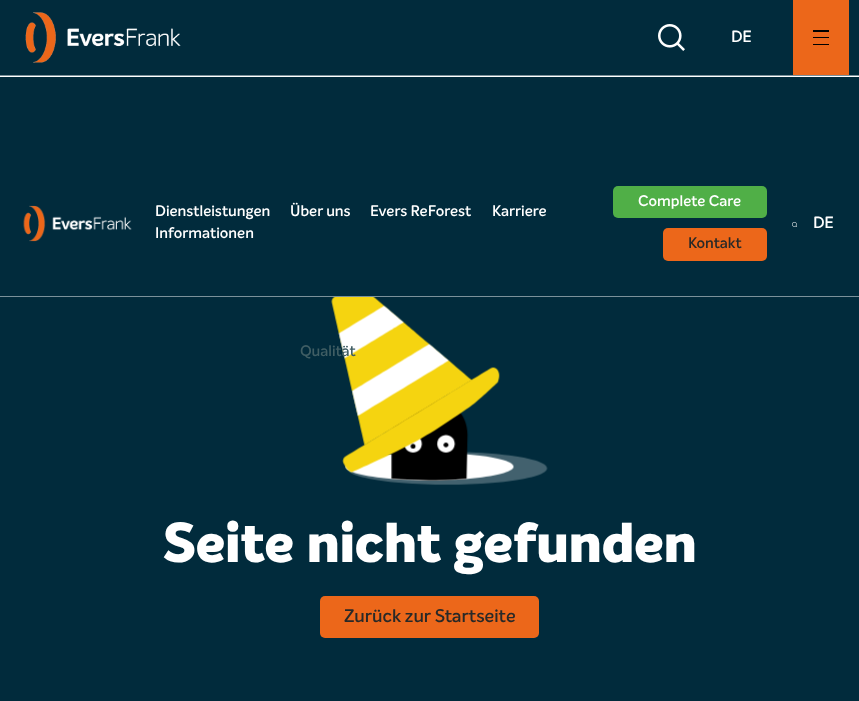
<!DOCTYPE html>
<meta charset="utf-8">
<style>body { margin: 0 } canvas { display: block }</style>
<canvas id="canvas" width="859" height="701"></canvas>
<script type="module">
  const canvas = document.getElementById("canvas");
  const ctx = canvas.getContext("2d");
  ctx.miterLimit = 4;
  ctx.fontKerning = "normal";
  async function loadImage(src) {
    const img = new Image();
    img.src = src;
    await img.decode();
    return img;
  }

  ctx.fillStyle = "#ffffff";
  ctx.fillRect(0, 0, 859, 701);
  ctx.fillStyle = "#012b3c";
  ctx.fillRect(0, 0, 859, 75);
  ctx.fillStyle = "#7b919a";
  ctx.fillRect(0, 75, 859, 1);
  ctx.drawImage(await loadImage("img1.png"), 25, 12, 156, 51);
  ctx.drawImage(await loadImage("img2.png"), 658, 24, 27, 27);
  ctx.font = "600 16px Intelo";
  ctx.fillStyle = "#ffffff";
  ctx.fillText("DE", 731, 42);
  ctx.fillStyle = "#ec671a";
  ctx.fillRect(793, 0, 56, 75);
  ctx.fillStyle = "#000000";
  ctx.fillRect(813, 37, 16, 1);
  ctx.fillRect(813, 44, 16, 1);
  ctx.fillRect(813, 30, 16, 2);
  ctx.fillStyle = "#012b3c";
  ctx.fillRect(0, 77, 859, 624);
  ctx.fillStyle = "#7b919a";
  ctx.fillRect(0, 296, 859, 1);
  ctx.drawImage(await loadImage("img3.png"), 23, 205, 109, 37);
  ctx.font = "600 15px Intelo";
  ctx.fillStyle = "#ffffff";
  ctx.fillText("Dienstleistungen", 155, 216);
  ctx.fillText("Über uns", 290, 216);
  ctx.drawImage(await loadImage("img5.png"), 331, 297, 217, 188);
  ctx.fillStyle = "#405e64";
  ctx.fillText("Qualität", 300, 356);
  ctx.fillStyle = "#ffffff";
  ctx.fillText("Evers ReForest", 370, 216);
  ctx.fillText("Karriere", 492, 216);
  ctx.fillText("Informationen", 155, 238);
  ctx.fillStyle = "#50af47";
  ctx.beginPath();
  ctx.roundRect(613, 186, 154, 32, 5);
  ctx.fill();
  ctx.fillStyle = "#ffffff";
  ctx.fillText("Complete Care", 638, 206);
  ctx.fillStyle = "#ec671a";
  ctx.beginPath();
  ctx.roundRect(663, 228, 104, 33, 5);
  ctx.fill();
  ctx.fillStyle = "#282928";
  ctx.fillText("Kontakt", 688, 248);
  ctx.drawImage(await loadImage("img4.png"), 792, 222, 5, 5);
  ctx.font = "600 16px Intelo";
  ctx.fillStyle = "#ffffff";
  ctx.fillText("DE", 813, 228);
  ctx.font = "800 55px Intelo";
  ctx.fillText("Seite nicht gefunden", 163, 562);
  ctx.fillStyle = "#ec671a";
  ctx.beginPath();
  ctx.roundRect(320, 596, 219, 42, 5);
  ctx.fill();
  ctx.font = "600 18px Intelo";
  ctx.fillStyle = "#282928";
  ctx.fillText("Zurück zur Startseite", 344, 622);
</script>
